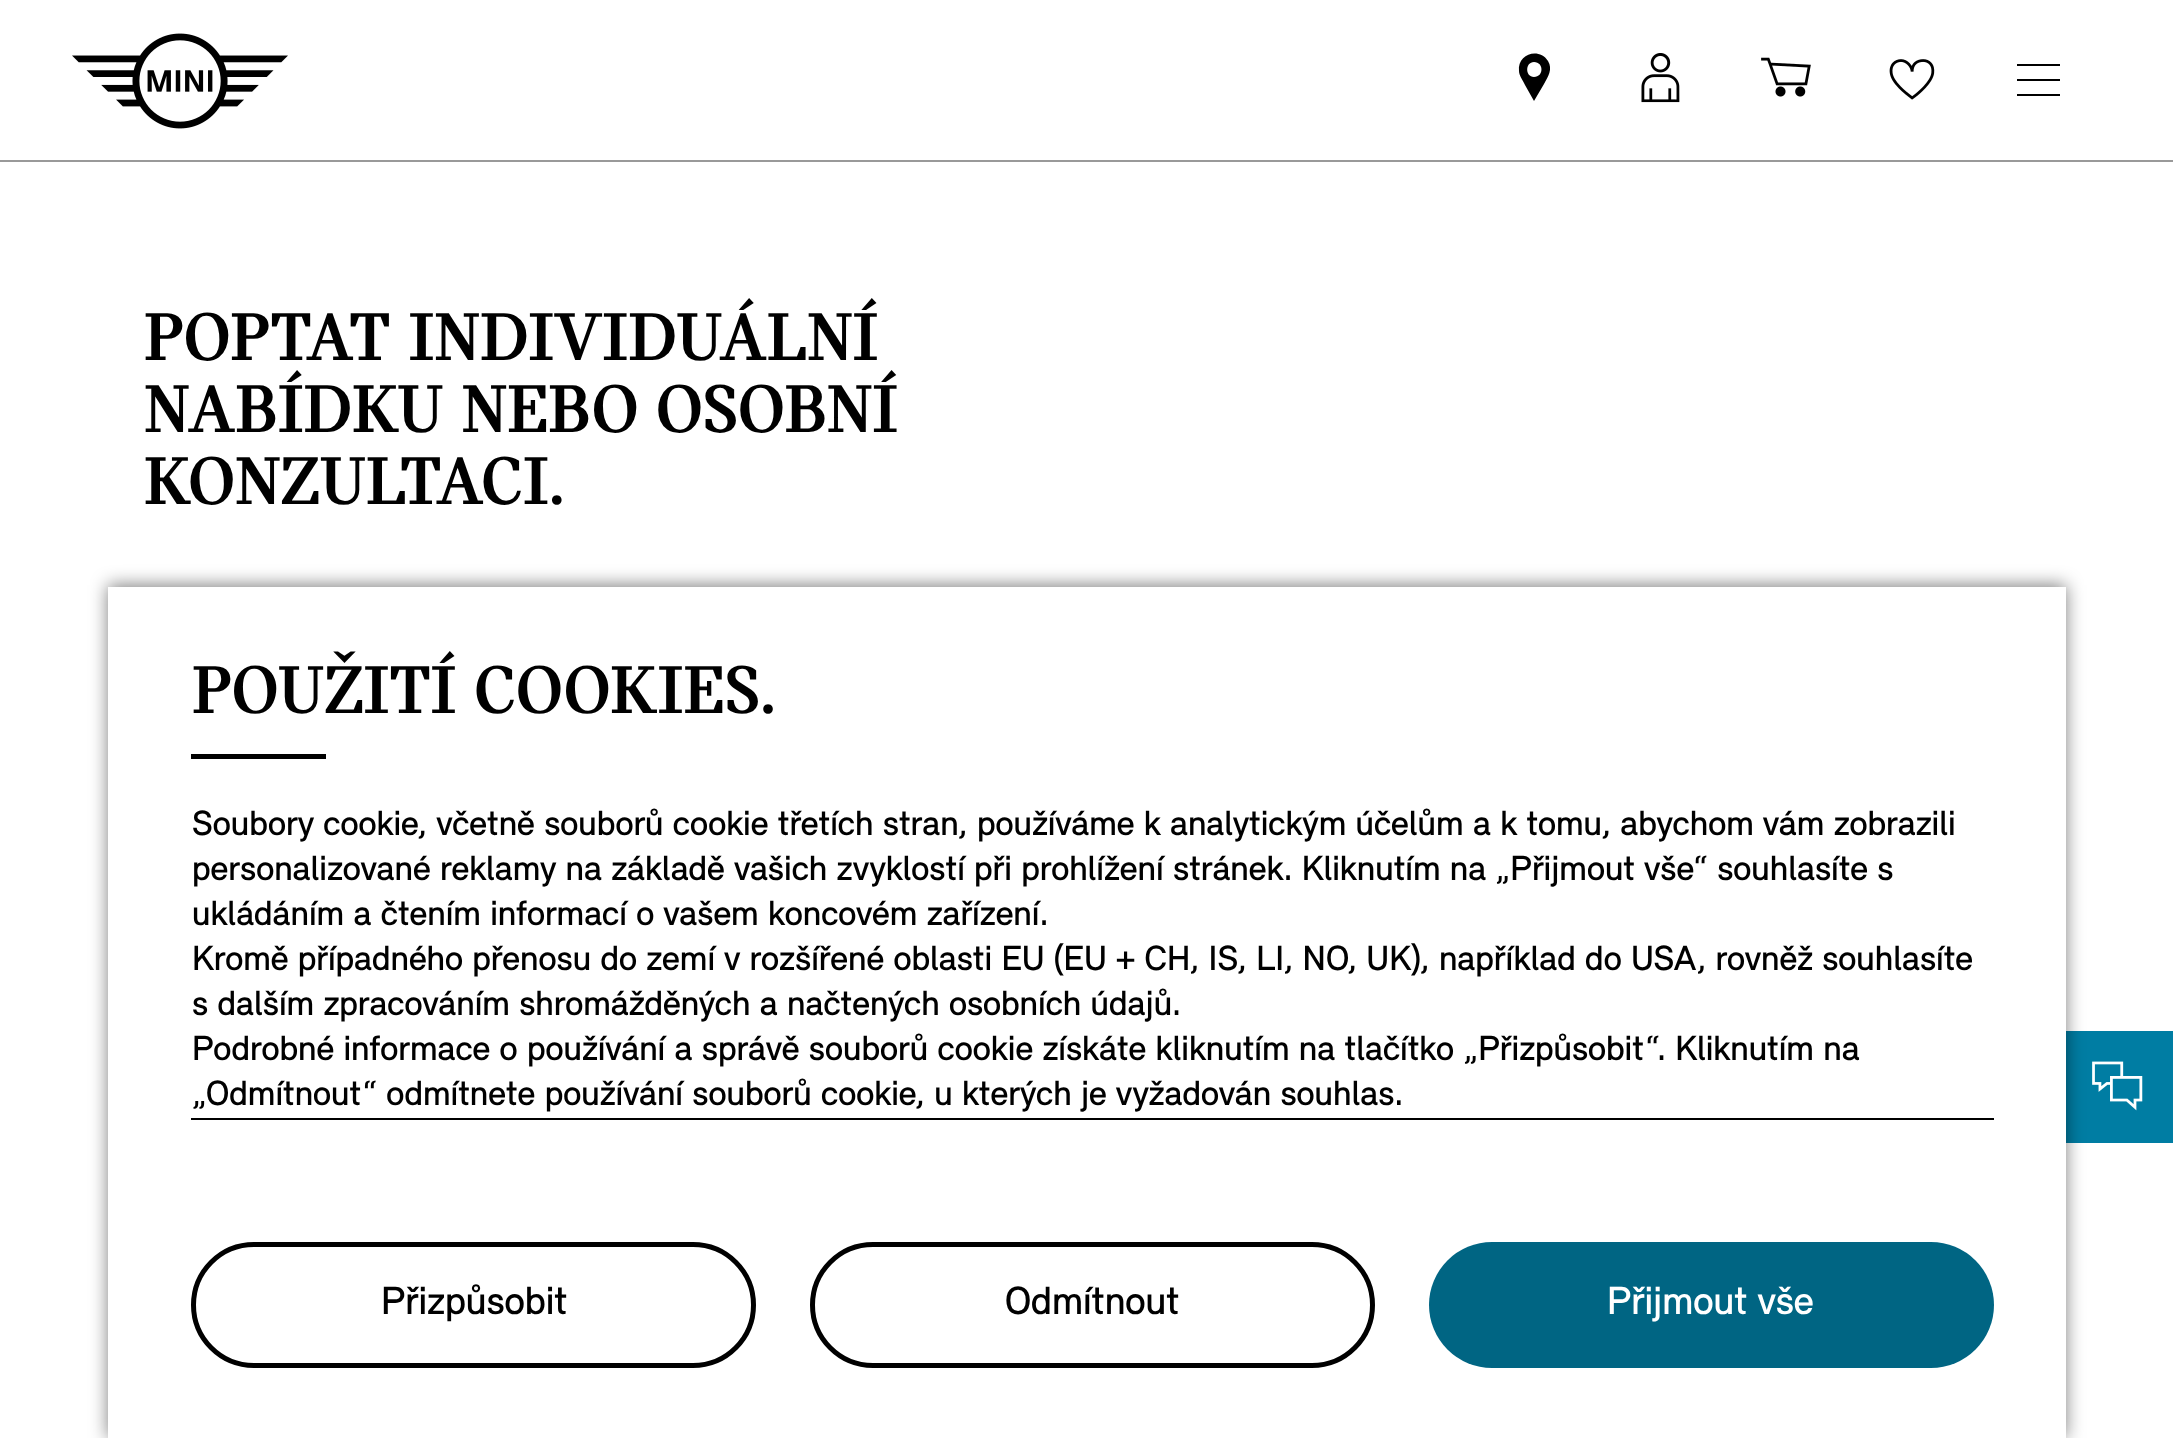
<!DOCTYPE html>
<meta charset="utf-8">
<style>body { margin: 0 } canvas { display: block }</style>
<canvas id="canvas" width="2173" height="1438"></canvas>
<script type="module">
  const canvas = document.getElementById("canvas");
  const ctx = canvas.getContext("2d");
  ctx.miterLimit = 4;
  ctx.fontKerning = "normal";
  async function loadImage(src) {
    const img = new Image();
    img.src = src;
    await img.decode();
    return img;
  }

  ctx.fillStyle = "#ffffff";
  ctx.fillRect(0, 0, 2173, 1438);
  ctx.fillStyle = "#999999";
  ctx.fillRect(0, 160, 2173, 2);
  ctx.drawImage(await loadImage("img1.png"), 72, 33, 216, 96);
  ctx.fillStyle = "#000000";
  ctx.beginPath();
  ctx.moveTo(1548, 61);
  ctx.bezierCurveTo(1539, 47, 1517, 54, 1519, 71);
  ctx.bezierCurveTo(1519, 76, 1523, 80, 1525, 85);
  ctx.lineTo(1534, 101);
  ctx.lineTo(1544, 84);
  ctx.bezierCurveTo(1548, 77, 1553, 69, 1548, 61);
  ctx.closePath();
  ctx.moveTo(1534, 77);
  ctx.bezierCurveTo(1525, 77, 1525, 62, 1534, 62);
  ctx.bezierCurveTo(1544, 62, 1544, 77, 1534, 77);
  ctx.closePath();
  ctx.fill();
  ctx.drawImage(await loadImage("img2.png"), 1641, 53, 39, 50);
  ctx.drawImage(await loadImage("img3.png"), 1761, 57, 50, 40);
  ctx.drawImage(await loadImage("img4.png"), 1889, 59, 46, 41);
  ctx.beginPath();
  ctx.moveTo(2017, 64);
  ctx.lineTo(2017, 66);
  ctx.lineTo(2060, 66);
  ctx.lineTo(2060, 64);
  ctx.closePath();
  ctx.moveTo(2017, 81);
  ctx.lineTo(2060, 81);
  ctx.lineTo(2060, 79);
  ctx.lineTo(2017, 79);
  ctx.closePath();
  ctx.moveTo(2017, 96);
  ctx.lineTo(2060, 96);
  ctx.lineTo(2060, 94);
  ctx.lineTo(2017, 94);
  ctx.closePath();
  ctx.fill();
  ctx.fillStyle = "#007da3";
  ctx.fillRect(2066, 1031, 107, 112);
  ctx.drawImage(await loadImage("img5.png"), 2092, 1061, 51, 50);
  ctx.font = "bold 72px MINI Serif";
  ctx.fillStyle = "#000000";
  ctx.fillText("POPTAT INDIVIDUÁLNÍ", 144, 360);
  ctx.fillText("NABÍDKU NEBO OSOBNÍ", 144, 432);
  ctx.fillText("KONZULTACI.", 144, 504);
  ctx.fillStyle = "rgba(0, 0, 0, 0.5)";
  ctx.filter = "blur(9px)";
  ctx.beginPath();
  ctx.rect(108, 585, 1958, 853);
  ctx.fill();
  ctx.filter = "none";
  ctx.fillStyle = "#ffffff";
  ctx.fillRect(108, 587, 1958, 851);
  ctx.font = "bold 72px 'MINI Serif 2'";
  ctx.fillStyle = "#000000";
  ctx.fillText("POUŽITÍ COOKIES.", 192, 713);
  ctx.fillRect(191, 754, 135, 5);
  ctx.font = "36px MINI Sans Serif";
  ctx.fillText("Soubory cookie, včetně souborů cookie třetích stran, používáme k analytickým účelům a k tomu, abychom vám zobrazili", 192, 835);
  ctx.fillText("personalizované reklamy na základě vašich zvyklostí při prohlížení stránek. Kliknutím na „Přijmout vše“ souhlasíte s", 192, 880);
  ctx.fillText("ukládáním a čtením informací o vašem koncovém zařízení.", 192, 925);
  ctx.fillText("Kromě případného přenosu do zemí v rozšířené oblasti EU (EU + CH, IS, LI, NO, UK), například do USA, rovněž souhlasíte", 192, 970);
  ctx.fillText("s dalším zpracováním shromážděných a načtených osobních údajů.", 192, 1015);
  ctx.fillText("Podrobné informace o používání a správě souborů cookie získáte kliknutím na tlačítko „Přizpůsobit“. Kliknutím na", 192, 1060);
  ctx.fillText("„Odmítnout“ odmítnete používání souborů cookie, u kterých je vyžadován souhlas.", 192, 1105);
  ctx.fillRect(191, 1118, 1803, 2);
  ctx.beginPath();
  ctx.roundRect(193.5, 1244.5, 560, 121, 60.5);
  ctx.strokeStyle = "#000000";
  ctx.lineWidth = 5;
  ctx.stroke();
  ctx.font = "40.5px MINI Sans Serif";
  ctx.fillText("Přizpůsobit", 381, 1314);
  ctx.beginPath();
  ctx.roundRect(812.5, 1244.5, 560, 121, 60.5);
  ctx.stroke();
  ctx.fillText("Odmítnout", 1005, 1314);
  ctx.fillStyle = "#006583";
  ctx.beginPath();
  ctx.roundRect(1429, 1242, 565, 126, 63);
  ctx.fill();
  ctx.fillStyle = "#ffffff";
  ctx.fillText("Přijmout vše", 1607, 1314);
</script>
